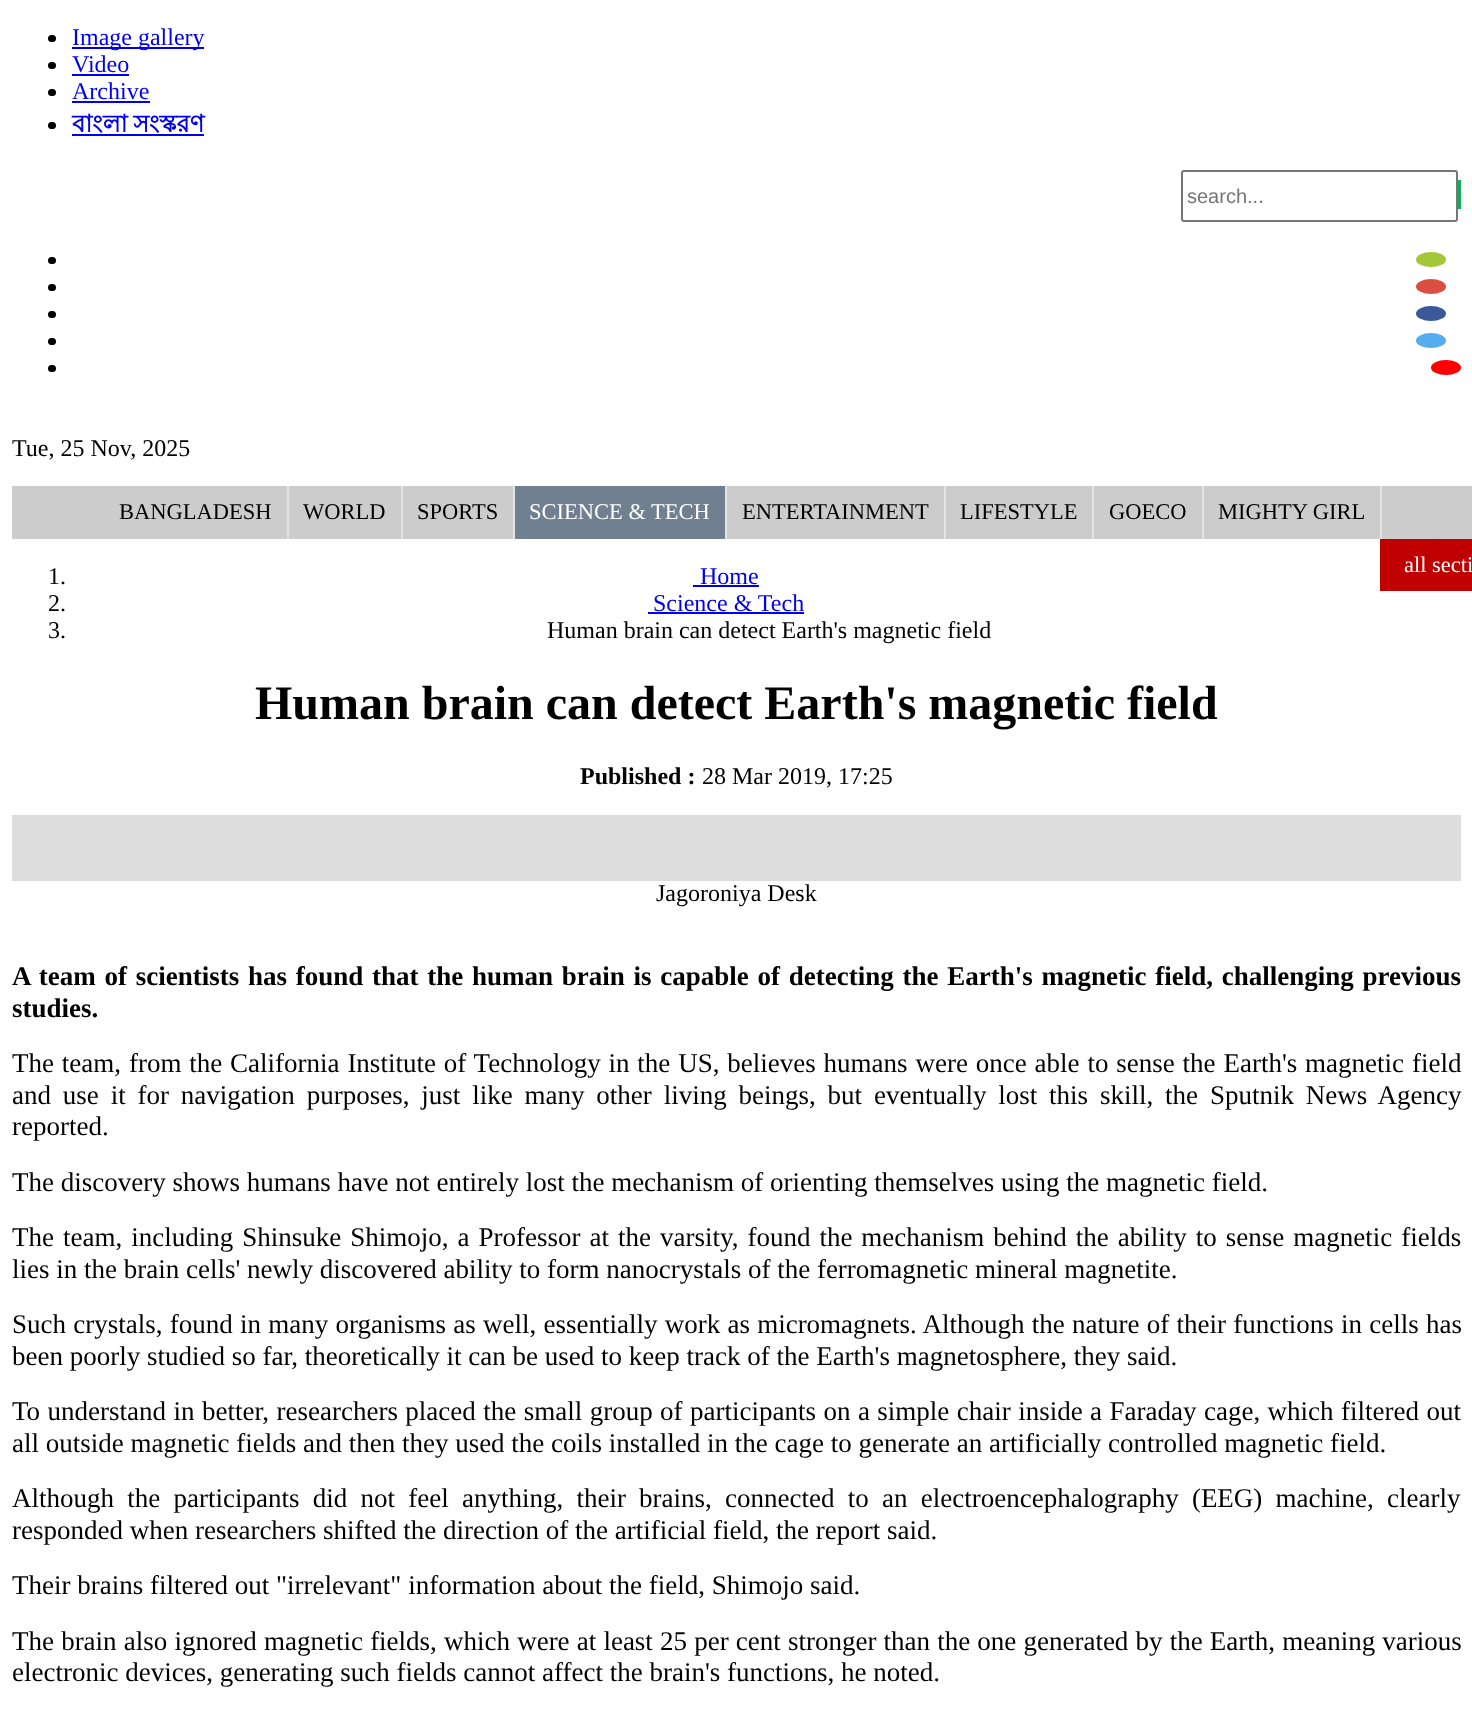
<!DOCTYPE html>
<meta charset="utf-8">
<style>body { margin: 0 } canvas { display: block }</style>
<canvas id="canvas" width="1472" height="1722"></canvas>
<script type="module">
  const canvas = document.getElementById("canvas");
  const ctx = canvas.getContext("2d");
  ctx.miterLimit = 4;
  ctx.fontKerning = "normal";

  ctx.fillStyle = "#ffffff";
  ctx.fillRect(0, 0, 1472, 1722);
  ctx.fillStyle = "#000000";
  ctx.beginPath();
  ctx.roundRect(48, 35, 8, 7, 3.5);
  ctx.fill();
  ctx.fillStyle = "#0000ee";
  ctx.fillRect(72, 47, 132, 2);
  ctx.font = "24px Liberation Serif";
  ctx.fillText("Image gallery", 72, 45);
  ctx.fillStyle = "#000000";
  ctx.beginPath();
  ctx.roundRect(48, 62, 8, 7, 3.5);
  ctx.fill();
  ctx.fillStyle = "#0000ee";
  ctx.fillText("Video", 72, 72);
  ctx.fillRect(72, 74, 57, 2);
  ctx.fillStyle = "#000000";
  ctx.beginPath();
  ctx.roundRect(48, 89, 8, 7, 3.5);
  ctx.fill();
  ctx.fillStyle = "#0000ee";
  ctx.fillText("Archive", 72, 99);
  ctx.fillRect(72, 101, 78, 2);
  ctx.fillStyle = "#000000";
  ctx.beginPath();
  ctx.roundRect(48, 122, 8, 7, 3.5);
  ctx.fill();
  ctx.wordSpacing = "-1px";
  ctx.font = "bold 24px Lohit Bengali";
  ctx.fillStyle = "#0000ee";
  ctx.fillText("বাংলা সংস্করণ", 72, 132);
  ctx.fillRect(72, 134, 132, 2);
  ctx.beginPath();
  ctx.roundRect(1182, 171, 275, 50, 2);
  ctx.strokeStyle = "#767676";
  ctx.lineWidth = 2;
  ctx.stroke();
  ctx.wordSpacing = "0px";
  ctx.font = "20px Liberation Sans";
  ctx.fillStyle = "#757575";
  ctx.fillText("search...", 1187, 203);
  ctx.fillStyle = "#11ac5c";
  ctx.fillRect(1458, 180, 3, 29);
  ctx.fillStyle = "#000000";
  ctx.beginPath();
  ctx.roundRect(48, 257, 8, 7, 3.5);
  ctx.fill();
  ctx.fillStyle = "#a4c639";
  ctx.beginPath();
  ctx.ellipse(1431, 259.5, 15, 7.5, 0, 0, Math.PI * 2);
  ctx.fill();
  ctx.fillStyle = "#000000";
  ctx.beginPath();
  ctx.roundRect(48, 284, 8, 7, 3.5);
  ctx.fill();
  ctx.fillStyle = "#dc4e41";
  ctx.beginPath();
  ctx.ellipse(1431, 286.5, 15, 7.5, 0, 0, Math.PI * 2);
  ctx.fill();
  ctx.fillStyle = "#000000";
  ctx.beginPath();
  ctx.roundRect(48, 311, 8, 7, 3.5);
  ctx.fill();
  ctx.fillStyle = "#3b5998";
  ctx.beginPath();
  ctx.ellipse(1431, 313.5, 15, 7.5, 0, 0, Math.PI * 2);
  ctx.fill();
  ctx.fillStyle = "#000000";
  ctx.beginPath();
  ctx.roundRect(48, 338, 8, 7, 3.5);
  ctx.fill();
  ctx.fillStyle = "#55acee";
  ctx.beginPath();
  ctx.ellipse(1431, 340.5, 15, 7.5, 0, 0, Math.PI * 2);
  ctx.fill();
  ctx.fillStyle = "#000000";
  ctx.beginPath();
  ctx.roundRect(48, 365, 8, 7, 3.5);
  ctx.fill();
  ctx.fillStyle = "#ff0000";
  ctx.beginPath();
  ctx.ellipse(1446, 367.5, 15, 7.5, 0, 0, Math.PI * 2);
  ctx.fill();
  ctx.font = "24px Liberation Serif";
  ctx.fillStyle = "#000000";
  ctx.fillText("Tue, 25 Nov, 2025", 12, 456);
  ctx.fillStyle = "#cccccc";
  ctx.fillRect(12, 486, 1460, 53);
  ctx.fillStyle = "#e4e4e4";
  ctx.fillRect(287, 486, 2, 53);
  ctx.font = "22.5px Liberation Serif";
  ctx.fillStyle = "#000000";
  ctx.fillText("BANGLADESH", 119, 519);
  ctx.fillStyle = "#e4e4e4";
  ctx.fillRect(401, 486, 2, 53);
  ctx.fillStyle = "#000000";
  ctx.fillText("WORLD", 303, 519);
  ctx.fillStyle = "#e4e4e4";
  ctx.fillRect(513, 486, 2, 53);
  ctx.fillStyle = "#000000";
  ctx.fillText("SPORTS", 417, 519);
  ctx.fillStyle = "#e4e4e4";
  ctx.fillRect(725, 486, 2, 53);
  ctx.fillStyle = "#708090";
  ctx.fillRect(515, 486, 210, 53);
  ctx.fillStyle = "#ffffff";
  ctx.fillText("SCIENCE & TECH", 529, 519);
  ctx.fillStyle = "#e4e4e4";
  ctx.fillRect(944, 486, 2, 53);
  ctx.fillStyle = "#000000";
  ctx.fillText("ENTERTAINMENT", 742, 519);
  ctx.fillStyle = "#e4e4e4";
  ctx.fillRect(1092, 486, 2, 53);
  ctx.fillStyle = "#000000";
  ctx.fillText("LIFESTYLE", 960, 519);
  ctx.fillStyle = "#e4e4e4";
  ctx.fillRect(1202, 486, 2, 53);
  ctx.fillStyle = "#000000";
  ctx.fillText("GOECO", 1109, 519);
  ctx.fillStyle = "#e4e4e4";
  ctx.fillRect(1380, 486, 2, 53);
  ctx.fillStyle = "#000000";
  ctx.fillText("MIGHTY GIRL", 1218, 519);
  ctx.fillStyle = "#c00000";
  ctx.fillRect(1380, 539, 92, 52);
  ctx.fillStyle = "#ffffff";
  ctx.fillText("all secti", 1404, 572);
  ctx.font = "24px Liberation Serif";
  ctx.fillStyle = "#000000";
  ctx.fillText("1.", 48, 584);
  ctx.fillStyle = "#0000ee";
  ctx.fillText("Home", 700, 584);
  ctx.fillRect(693, 585, 66, 2);
  ctx.fillStyle = "#000000";
  ctx.fillText("2.", 48, 611);
  ctx.fillStyle = "#0000ee";
  ctx.fillText("Science & Tech", 653, 611);
  ctx.fillRect(648, 612, 156, 2);
  ctx.fillStyle = "#000000";
  ctx.fillText("3.", 48, 638);
  ctx.fillText("Human brain can detect Earth's magnetic field", 547, 638);
  ctx.font = "bold 48px Liberation Serif";
  ctx.fillText("Human brain can detect Earth's magnetic field", 255, 719);
  ctx.font = "bold 24px Liberation Serif";
  ctx.fillText("Published :", 580, 784);
  ctx.font = "24px Liberation Serif";
  ctx.fillText("28 Mar 2019, 17:25", 702, 784);
  ctx.fillStyle = "#dddddd";
  ctx.fillRect(12, 815, 1449, 66);
  ctx.fillStyle = "#000000";
  ctx.fillText("Jagoroniya Desk", 656, 901);
  ctx.wordSpacing = "2px";
  ctx.font = "bold 27px Liberation Serif";
  ctx.fillText("A team of scientists has found that the human brain is capable of detecting the Earth's magnetic field, challenging previous", 12, 985);
  ctx.wordSpacing = "0px";
  ctx.fillText("studies.", 12, 1017);
  ctx.wordSpacing = "1.1px";
  ctx.font = "27px Liberation Serif";
  ctx.fillText("The team, from the California Institute of Technology in the US, believes humans were once able to sense the Earth's magnetic field", 12, 1072);
  ctx.wordSpacing = "5.1px";
  ctx.fillText("and use it for navigation purposes, just like many other living beings, but eventually lost this skill, the Sputnik News Agency", 12, 1104);
  ctx.wordSpacing = "0px";
  ctx.fillText("reported.", 12, 1135);
  ctx.fillText("The discovery shows humans have not entirely lost the mechanism of orienting themselves using the magnetic field.", 12, 1191);
  ctx.wordSpacing = "2.25px";
  ctx.fillText("The team, including Shinsuke Shimojo, a Professor at the varsity, found the mechanism behind the ability to sense magnetic fields", 12, 1246);
  ctx.wordSpacing = "0px";
  ctx.fillText("lies in the brain cells' newly discovered ability to form nanocrystals of the ferromagnetic mineral magnetite.", 12, 1278);
  ctx.wordSpacing = "0.5px";
  ctx.fillText("Such crystals, found in many organisms as well, essentially work as micromagnets. Although the nature of their functions in cells has", 12, 1333);
  ctx.wordSpacing = "0px";
  ctx.fillText("been poorly studied so far, theoretically it can be used to keep track of the Earth's magnetosphere, they said.", 12, 1365);
  ctx.wordSpacing = "0.7px";
  ctx.fillText("To understand in better, researchers placed the small group of participants on a simple chair inside a Faraday cage, which filtered out", 12, 1420);
  ctx.wordSpacing = "0px";
  ctx.fillText("all outside magnetic fields and then they used the coils installed in the cage to generate an artificially controlled magnetic field.", 12, 1452);
  ctx.wordSpacing = "6.5px";
  ctx.fillText("Although the participants did not feel anything, their brains, connected to an electroencephalography (EEG) machine, clearly", 12, 1507);
  ctx.wordSpacing = "0px";
  ctx.fillText("responded when researchers shifted the direction of the artificial field, the report said.", 12, 1539);
  ctx.fillText("Their brains filtered out \"irrelevant\" information about the field, Shimojo said.", 12, 1594);
  ctx.wordSpacing = "0.4px";
  ctx.fillText("The brain also ignored magnetic fields, which were at least 25 per cent stronger than the one generated by the Earth, meaning various", 12, 1650);
  ctx.wordSpacing = "0px";
  ctx.fillText("electronic devices, generating such fields cannot affect the brain's functions, he noted.", 12, 1681);
</script>
